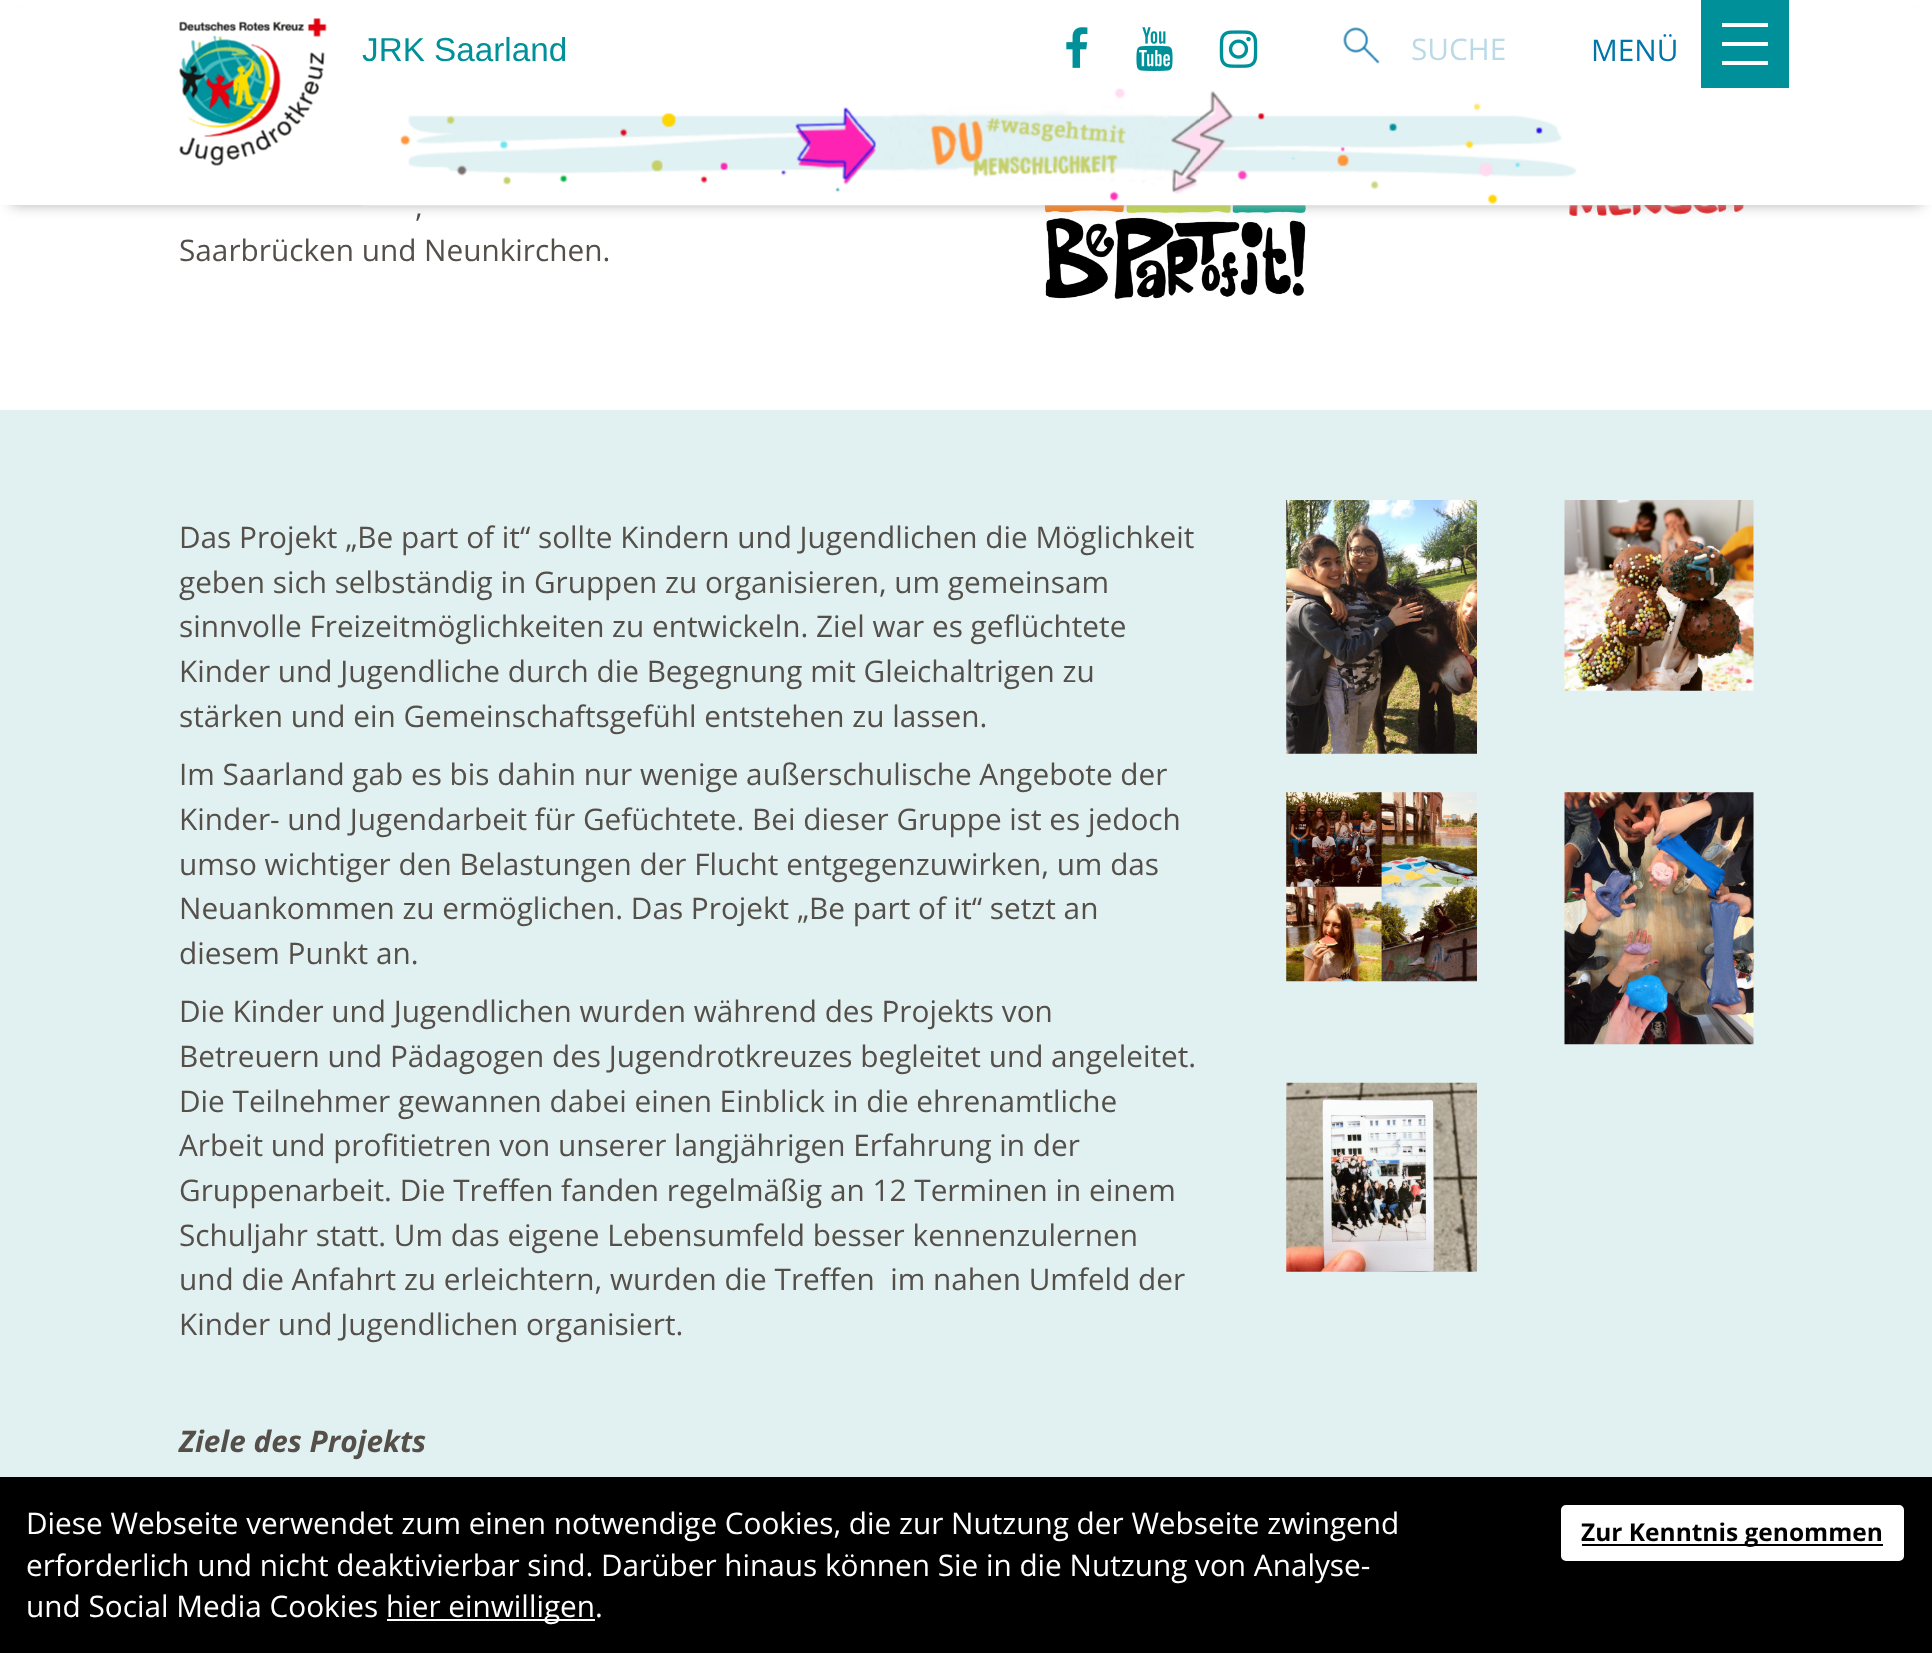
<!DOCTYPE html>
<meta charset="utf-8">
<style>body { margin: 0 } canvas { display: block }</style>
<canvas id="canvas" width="1932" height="1653"></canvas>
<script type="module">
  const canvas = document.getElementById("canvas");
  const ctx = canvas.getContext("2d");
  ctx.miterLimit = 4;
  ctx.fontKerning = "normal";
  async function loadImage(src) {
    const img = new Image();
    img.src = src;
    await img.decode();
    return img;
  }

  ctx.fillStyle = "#ffffff";
  ctx.fillRect(0, 0, 1932, 1653);
  ctx.drawImage(await loadImage("img7.png"), 1044, 205, 262, 94);
  ctx.drawImage(await loadImage("img8.png"), 1569, 205, 175, 11);
  ctx.fillStyle = "#b4b4b4";
  ctx.filter = "blur(7px)";
  ctx.beginPath();
  ctx.rect(11, 21, 1911, 184);
  ctx.fill();
  ctx.filter = "none";
  ctx.fillStyle = "#ffffff";
  ctx.fillRect(0, 8, 1932, 197);
  ctx.drawImage(await loadImage("img1.png"), 179, 18, 148, 148);
  ctx.font = "33.25px Liberation Sans";
  ctx.fillStyle = "#009099";
  ctx.fillText("JRK Saarland", 362, 61);
  ctx.drawImage(await loadImage("img2.png"), 1066, 27, 22, 41);
  ctx.drawImage(await loadImage("img3.png"), 1136, 27, 37, 44);
  ctx.drawImage(await loadImage("img4.png"), 1219, 30, 39, 38);
  ctx.drawImage(await loadImage("img5.png"), 1343, 27, 37, 37);
  ctx.font = "29.75px Open Sans";
  ctx.fillStyle = "#badae8";
  ctx.fillText("SUCHE", 1411, 60);
  ctx.fillStyle = "#0075a9";
  ctx.fillText("MENÜ", 1591, 61);
  ctx.fillStyle = "#009099";
  ctx.fillRect(1701, 0, 88, 88);
  ctx.fillStyle = "#ffffff";
  ctx.fillRect(1722, 23, 46, 4);
  ctx.fillRect(1722, 42, 46, 4);
  ctx.fillRect(1722, 61, 46, 4);
  ctx.drawImage(await loadImage("img6.png"), 362, 88, 1261, 118);
  ctx.wordSpacing = "1px";
  ctx.fillStyle = "#554f4a";
  ctx.fillText(",", 415, 217);
  ctx.wordSpacing = "0px";
  ctx.fillText("Saarbrücken und Neunkirchen.", 179, 261);
  ctx.fillStyle = "#e1f1f1";
  ctx.fillRect(0, 410, 1932, 1067);
  ctx.fillStyle = "#554f4a";
  ctx.fillText("Das Projekt „Be part of it“ sollte Kindern und Jugendlichen die Möglichkeit", 179, 548);
  ctx.fillText("geben sich selbständig in Gruppen zu organisieren, um gemeinsam", 179, 593);
  ctx.fillText("sinnvolle Freizeitmöglichkeiten zu entwickeln. Ziel war es geflüchtete", 179, 637);
  ctx.fillText("Kinder und Jugendliche durch die Begegnung mit Gleichaltrigen zu", 179, 682);
  ctx.fillText("stärken und ein Gemeinschaftsgefühl entstehen zu lassen.", 179, 727);
  ctx.fillText("Im Saarland gab es bis dahin nur wenige außerschulische Angebote der", 179, 785);
  ctx.fillText("Kinder- und Jugendarbeit für Gefüchtete. Bei dieser Gruppe ist es jedoch", 179, 830);
  ctx.fillText("umso wichtiger den Belastungen der Flucht entgegenzuwirken, um das", 179, 875);
  ctx.fillText("Neuankommen zu ermöglichen. Das Projekt „Be part of it“ setzt an", 179, 919);
  ctx.fillText("diesem Punkt an.", 179, 964);
  ctx.fillText("Die Kinder und Jugendlichen wurden während des Projekts von", 179, 1022);
  ctx.fillText("Betreuern und Pädagogen des Jugendrotkreuzes begleitet und angeleitet.", 179, 1067);
  ctx.fillText("Die Teilnehmer gewannen dabei einen Einblick in die ehrenamtliche", 179, 1112);
  ctx.fillText("Arbeit und profitietren von unserer langjährigen Erfahrung in der", 179, 1156);
  ctx.fillText("Gruppenarbeit. Die Treffen fanden regelmäßig an 12 Terminen in einem", 179, 1201);
  ctx.fillText("Schuljahr statt. Um das eigene Lebensumfeld besser kennenzulernen", 179, 1246);
  ctx.fillText("und die Anfahrt zu erleichtern, wurden die Treffen  im nahen Umfeld der", 179, 1290);
  ctx.fillText("Kinder und Jugendlichen organisiert.", 179, 1335);
  ctx.font = "italic bold 29.75px Open Sans";
  ctx.fillText("Ziele des Projekts", 179, 1452);
  ctx.drawImage(await loadImage("img9.png"), 1286, 500, 191, 254);
  ctx.drawImage(await loadImage("img10.png"), 1564, 500, 190, 191);
  ctx.drawImage(await loadImage("img11.png"), 1286, 792, 191, 190);
  ctx.drawImage(await loadImage("img12.png"), 1564, 792, 190, 253);
  ctx.drawImage(await loadImage("img13.png"), 1286, 1082, 191, 190);
  ctx.fillStyle = "#000000";
  ctx.fillRect(0, 1477, 1932, 176);
  ctx.font = "29.75px Open Sans";
  ctx.fillStyle = "#ffffff";
  ctx.fillText("Diese Webseite verwendet zum einen notwendige Cookies, die zur Nutzung der Webseite zwingend", 26, 1534);
  ctx.fillText("erforderlich und nicht deaktivierbar sind. Darüber hinaus können Sie in die Nutzung von Analyse-", 26, 1576);
  ctx.fillText("und Social Media Cookies", 26, 1617);
  ctx.fillRect(387, 1619, 208, 2);
  ctx.fillText("hier einwilligen.", 386, 1617);
  ctx.beginPath();
  ctx.roundRect(1560, 1504, 345, 58, 6);
  ctx.fill();
  ctx.strokeStyle = "#000000";
  ctx.lineWidth = 2;
  ctx.stroke();
  ctx.fillStyle = "#000000";
  ctx.fillRect(1582, 1544, 301, 2);
  ctx.font = "bold 24.5px Open Sans";
  ctx.fillText("Zur Kenntnis genommen", 1581, 1541);
</script>
